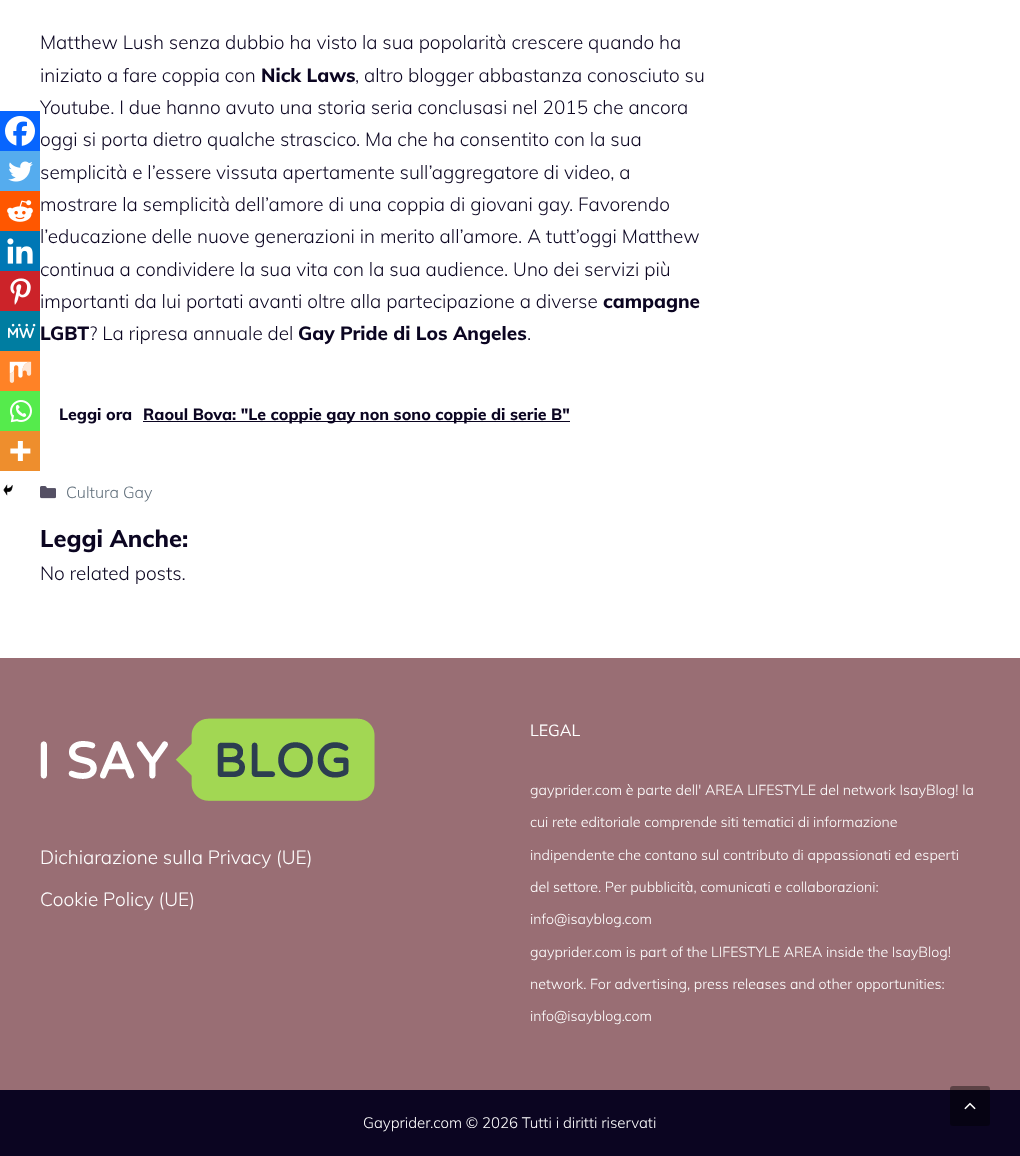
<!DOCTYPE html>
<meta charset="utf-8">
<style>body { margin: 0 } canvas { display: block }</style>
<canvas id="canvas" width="1020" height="1156"></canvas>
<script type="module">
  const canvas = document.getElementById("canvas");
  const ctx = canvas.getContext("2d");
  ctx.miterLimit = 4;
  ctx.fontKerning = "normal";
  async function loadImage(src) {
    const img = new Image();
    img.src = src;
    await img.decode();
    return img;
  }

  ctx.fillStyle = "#ffffff";
  ctx.fillRect(0, 0, 1020, 1156);
  ctx.font = "300 19px Muli";
  ctx.fillStyle = "#0b0521";
  ctx.fillText("Youtube. I due hanno avuto una storia seria conclusasi nel 2015 che ancora", 40, 114);
  ctx.fillStyle = "#0765fe";
  ctx.fillRect(0, 111, 40, 40);
  ctx.drawImage(await loadImage("img1.png"), 5, 116, 30, 30);
  ctx.fillStyle = "#55acee";
  ctx.fillRect(0, 151, 40, 40);
  ctx.drawImage(await loadImage("img2.png"), 8, 161, 25, 21);
  ctx.fillStyle = "#ff5700";
  ctx.fillRect(0, 191, 40, 40);
  ctx.drawImage(await loadImage("img3.png"), 7, 200, 26, 22);
  ctx.fillStyle = "#0077b5";
  ctx.fillRect(0, 231, 40, 40);
  ctx.drawImage(await loadImage("img4.png"), 7, 238, 26, 26);
  ctx.fillStyle = "#cc2329";
  ctx.fillRect(0, 271, 40, 40);
  ctx.drawImage(await loadImage("img5.png"), 10, 278, 21, 27);
  ctx.fillStyle = "#007da1";
  ctx.fillRect(0, 311, 40, 40);
  ctx.drawImage(await loadImage("img6.png"), 8, 323, 28, 16);
  ctx.fillStyle = "#ff8226";
  ctx.fillRect(0, 351, 40, 40);
  ctx.drawImage(await loadImage("img7.png"), 9, 361, 23, 22);
  ctx.fillStyle = "#55eb4c";
  ctx.fillRect(0, 391, 40, 40);
  ctx.drawImage(await loadImage("img8.png"), 10, 400, 22, 23);
  ctx.fillStyle = "#ee8e2d";
  ctx.fillRect(0, 431, 40, 40);
  ctx.drawImage(await loadImage("img9.png"), 10, 441, 21, 20);
  ctx.drawImage(await loadImage("img10.png"), 3, 484, 10, 12);
  ctx.fillStyle = "#0b0521";
  ctx.fillText("Matthew Lush senza dubbio ha visto la sua popolarità crescere quando ha", 40, 49);
  ctx.fillText("iniziato a fare coppia con", 40, 82);
  ctx.font = "800 19px Muli";
  ctx.fillText("Nick Laws", 261, 82);
  ctx.font = "300 19px Muli";
  ctx.fillText(", altro blogger abbastanza conosciuto su", 355, 82);
  ctx.fillText("oggi si porta dietro qualche strascico. Ma che ha consentito con la sua", 40, 146);
  ctx.fillText("semplicità e l’essere vissuta apertamente sull’aggregatore di video, a", 40, 179);
  ctx.fillText("mostrare la semplicità dell’amore di una", 40, 211);
  ctx.fillText("coppia di giovani gay", 387, 211);
  ctx.fillText(". Favorendo", 569, 211);
  ctx.fillText("l’educazione delle nuove generazioni in merito all’amore. A tutt’oggi Matthew", 40, 243);
  ctx.fillText("continua a condividere la sua vita con la sua audience. Uno dei servizi più", 40, 276);
  ctx.fillText("importanti da lui portati avanti oltre alla partecipazione a diverse", 40, 308);
  ctx.font = "800 19px Muli";
  ctx.fillText("campagne", 603, 308);
  ctx.fillText("LGBT", 40, 340);
  ctx.font = "300 19px Muli";
  ctx.fillText("? La ripresa annuale del", 89, 340);
  ctx.font = "800 19px Muli";
  ctx.fillText("Gay Pride di Los Angeles", 298, 340);
  ctx.font = "300 19px Muli";
  ctx.fillText(".", 527, 340);
  ctx.font = "800 16px Muli";
  ctx.fillText("Leggi ora", 59, 420);
  ctx.fillRect(143, 421, 427, 1);
  ctx.fillText("Raoul Bova: \"Le coppie gay non sono coppie di serie B\"", 143, 420);
  ctx.drawImage(await loadImage("img11.png"), 40, 486, 16, 13);
  ctx.font = "300 16px Muli";
  ctx.fillStyle = "#62707c";
  ctx.fillText("Cultura Gay", 66, 498);
  ctx.font = "800 23.75px Muli";
  ctx.fillStyle = "#0b0521";
  ctx.fillText("Leggi Anche:", 40, 547);
  ctx.font = "300 19px Muli";
  ctx.fillText("No related posts.", 40, 580);
  ctx.fillStyle = "#996e74";
  ctx.fillRect(0, 658, 1020, 432);
  ctx.drawImage(await loadImage("img12.png"), 40, 718, 335, 83);
  ctx.fillStyle = "#ffffff";
  ctx.fillText("Dichiarazione sulla Privacy (UE)", 40, 864);
  ctx.fillText("Cookie Policy (UE)", 40, 906);
  ctx.font = "16px Muli";
  ctx.fillText("LEGAL", 530, 736);
  ctx.font = "300 14.25px Muli";
  ctx.fillText("gayprider.com è parte dell' AREA LIFESTYLE del network IsayBlog! la", 530, 795);
  ctx.fillText("cui rete editoriale comprende siti tematici di informazione", 530, 827);
  ctx.fillText("indipendente che contano sul contributo di appassionati ed esperti", 530, 860);
  ctx.fillText("del settore. Per pubblicità, comunicati e collaborazioni:", 530, 892);
  ctx.fillText("info@isayblog.com", 530, 924);
  ctx.fillText("gayprider.com is part of the LIFESTYLE AREA inside the IsayBlog!", 530, 957);
  ctx.fillText("network. For advertising, press releases and other opportunities:", 530, 989);
  ctx.fillText("info@isayblog.com", 530, 1021);
  ctx.fillStyle = "#0b0521";
  ctx.fillRect(0, 1090, 1020, 66);
  ctx.font = "300 15px Muli";
  ctx.fillStyle = "#ffffff";
  ctx.fillText("Gayprider.com © 2026 Tutti i diritti riservati", 363, 1128);
  ctx.fillStyle = "rgba(0, 0, 0, 0.4)";
  ctx.beginPath();
  ctx.roundRect(950, 1086, 40, 40, 3);
  ctx.fill();
  ctx.drawImage(await loadImage("img13.png"), 964, 1102, 12, 8);
</script>
